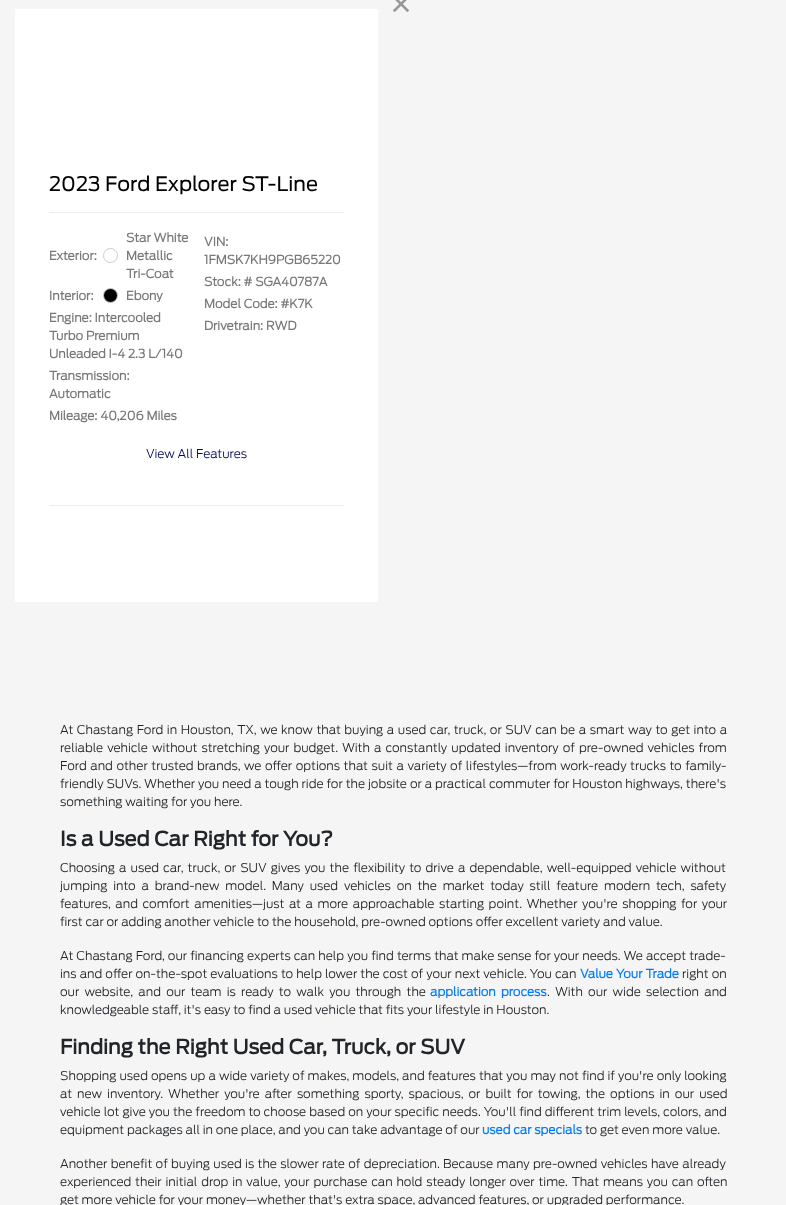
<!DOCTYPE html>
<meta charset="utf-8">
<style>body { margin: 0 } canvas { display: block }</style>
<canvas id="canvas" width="786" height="1205"></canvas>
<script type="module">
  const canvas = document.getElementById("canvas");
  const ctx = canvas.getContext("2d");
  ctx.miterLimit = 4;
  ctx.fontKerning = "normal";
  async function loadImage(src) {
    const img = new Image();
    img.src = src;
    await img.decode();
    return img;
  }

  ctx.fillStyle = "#f5f5f5";
  ctx.fillRect(0, 0, 786, 1205);
  ctx.drawImage(await loadImage("img1.png"), 393, 0, 16, 12);
  ctx.fillStyle = "#ffffff";
  ctx.fillRect(15, 9, 363, 593);
  ctx.font = "20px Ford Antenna";
  ctx.fillStyle = "#000000";
  ctx.fillText("2023 Ford Explorer ST-Line", 49, 191);
  ctx.fillStyle = "#ededed";
  ctx.fillRect(49, 212, 295, 1);
  ctx.font = "bold 12px 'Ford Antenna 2'";
  ctx.fillStyle = "#797878";
  ctx.fillText("Exterior:", 49, 260);
  ctx.beginPath();
  ctx.arc(110.5, 255.5, 7, 0, Math.PI * 2);
  ctx.strokeStyle = "#cccccc";
  ctx.stroke();
  ctx.fillText("Star White", 126, 242);
  ctx.fillText("Metallic", 126, 260);
  ctx.fillText("Tri-Coat", 126, 278);
  ctx.fillText("Interior:", 49, 300);
  ctx.fillStyle = "#000000";
  ctx.beginPath();
  ctx.arc(110.5, 295.5, 7, 0, Math.PI * 2);
  ctx.fill();
  ctx.stroke();
  ctx.fillStyle = "#797878";
  ctx.fillText("Ebony", 126, 300);
  ctx.fillText("Engine: Intercooled", 49, 322);
  ctx.fillText("Turbo Premium", 49, 340);
  ctx.fillText("Unleaded I-4 2.3 L/140", 49, 358);
  ctx.fillText("Transmission:", 49, 380);
  ctx.fillText("Automatic", 49, 398);
  ctx.fillText("Mileage: 40,206 Miles", 49, 420);
  ctx.fillText("VIN:", 204, 246);
  ctx.fillText("1FMSK7KH9PGB65220", 204, 264);
  ctx.fillText("Stock: # SGA40787A", 204, 286);
  ctx.fillText("Model Code: #K7K", 204, 308);
  ctx.fillText("Drivetrain: RWD", 204, 330);
  ctx.font = "300 12px Ford Antenna";
  ctx.fillStyle = "#00095b";
  ctx.fillText("View All Features", 146, 458);
  ctx.fillStyle = "#ededed";
  ctx.fillRect(49, 505, 295, 1);
  ctx.wordSpacing = "0.75px";
  ctx.fillStyle = "#212529";
  ctx.fillText("At Chastang Ford in Houston, TX, we know that buying a used car, truck, or SUV can be a smart way to get into a", 60, 734);
  ctx.wordSpacing = "1.25px";
  ctx.fillText("reliable vehicle without stretching your budget. With a constantly updated inventory of pre-owned vehicles from", 60, 752);
  ctx.wordSpacing = "0.75px";
  ctx.fillText("Ford and other trusted brands, we offer options that suit a variety of lifestyles—from work-ready trucks to family-", 60, 770);
  ctx.wordSpacing = "0.1px";
  ctx.fillText("friendly SUVs. Whether you need a tough ride for the jobsite or a practical commuter for Houston highways, there's", 60, 788);
  ctx.wordSpacing = "0px";
  ctx.fillText("something waiting for you here.", 60, 806);
  ctx.font = "bold 20px Ford Antenna";
  ctx.fillText("Is a Used Car Right for You?", 60, 846);
  ctx.wordSpacing = "1.3px";
  ctx.font = "300 12px Ford Antenna";
  ctx.fillText("Choosing a used car, truck, or SUV gives you the flexibility to drive a dependable, well-equipped vehicle without", 60, 872);
  ctx.wordSpacing = "3px";
  ctx.fillText("jumping into a brand-new model. Many used vehicles on the market today still feature modern tech, safety", 60, 890);
  ctx.wordSpacing = "1.75px";
  ctx.fillText("features, and comfort amenities—just at a more approachable starting point. Whether you're shopping for your", 60, 908);
  ctx.wordSpacing = "0px";
  ctx.fillText("first car or adding another vehicle to the household, pre-owned options offer excellent variety and value.", 60, 926);
  ctx.wordSpacing = "0.25px";
  ctx.fillText("At Chastang Ford, our financing experts can help you find terms that make sense for your needs. We accept trade-", 60, 960);
  ctx.fillText("ins and offer on-the-spot evaluations to help lower the cost of your next vehicle. You can", 60, 978);
  ctx.font = "bold 12px 'Ford Antenna 2'";
  ctx.fillStyle = "#007bff";
  ctx.fillText("Value Your Trade", 580, 978);
  ctx.font = "300 12px Ford Antenna";
  ctx.fillStyle = "#212529";
  ctx.fillText("right on", 682, 978);
  ctx.wordSpacing = "2.4px";
  ctx.fillText("our website, and our team is ready to walk you through the", 60, 996);
  ctx.font = "bold 12px 'Ford Antenna 2'";
  ctx.fillStyle = "#007bff";
  ctx.fillText("application process", 430, 996);
  ctx.font = "300 12px Ford Antenna";
  ctx.fillStyle = "#212529";
  ctx.fillText(". With our wide selection and", 547, 996);
  ctx.wordSpacing = "0px";
  ctx.fillText("knowledgeable staff, it's easy to find a used vehicle that fits your lifestyle in Houston.", 60, 1014);
  ctx.font = "bold 20px Ford Antenna";
  ctx.fillText("Finding the Right Used Car, Truck, or SUV", 60, 1054);
  ctx.wordSpacing = "0.25px";
  ctx.font = "300 12px Ford Antenna";
  ctx.fillText("Shopping used opens up a wide variety of makes, models, and features that you may not find if you're only looking", 60, 1080);
  ctx.wordSpacing = "2.25px";
  ctx.fillText("at new inventory. Whether you're after something sporty, spacious, or built for towing, the options in our used", 60, 1098);
  ctx.wordSpacing = "0.2px";
  ctx.fillText("vehicle lot give you the freedom to choose based on your specific needs. You'll find different trim levels, colors, and", 60, 1116);
  ctx.wordSpacing = "0px";
  ctx.fillText("equipment packages all in one place, and you can take advantage of our", 60, 1134);
  ctx.font = "bold 12px 'Ford Antenna 2'";
  ctx.fillStyle = "#007bff";
  ctx.fillText("used car specials", 482, 1134);
  ctx.font = "300 12px Ford Antenna";
  ctx.fillStyle = "#212529";
  ctx.fillText("to get even more value.", 585, 1134);
  ctx.wordSpacing = "0.5px";
  ctx.fillText("Another benefit of buying used is the slower rate of depreciation. Because many pre-owned vehicles have already", 60, 1168);
  ctx.wordSpacing = "1px";
  ctx.fillText("experienced their initial drop in value, your purchase can hold steady longer over time. That means you can often", 60, 1186);
  ctx.wordSpacing = "0px";
  ctx.fillText("get more vehicle for your money—whether that's extra space, advanced features, or upgraded performance.", 60, 1204);
</script>
